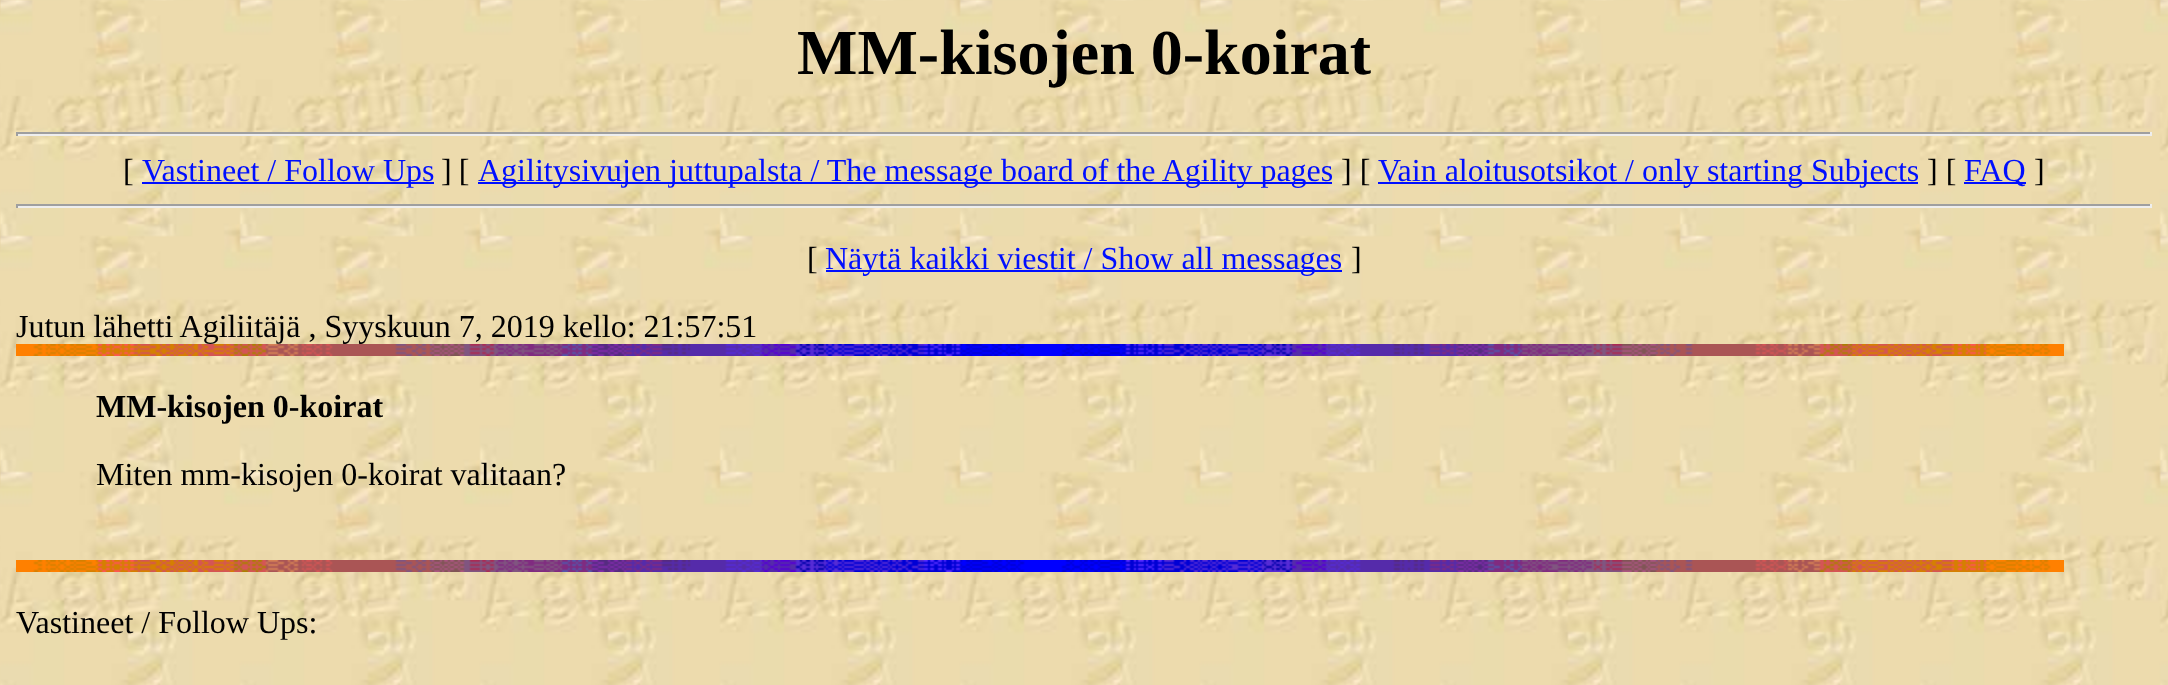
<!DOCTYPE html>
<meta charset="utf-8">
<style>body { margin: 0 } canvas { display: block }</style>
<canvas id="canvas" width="2168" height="685"></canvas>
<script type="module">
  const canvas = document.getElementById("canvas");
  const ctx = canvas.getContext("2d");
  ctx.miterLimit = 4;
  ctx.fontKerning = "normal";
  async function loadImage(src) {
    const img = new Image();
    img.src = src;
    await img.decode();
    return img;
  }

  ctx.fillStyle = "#ffffff";
  ctx.fillRect(0, 0, 2168, 685);
  ctx.drawImage(await loadImage("img1.png"), 0, 0, 2168, 685);
  ctx.font = "bold 64px Liberation Serif";
  ctx.fillStyle = "#000000";
  ctx.fillText("MM-kisojen 0-koirat", 797, 74);
  ctx.fillStyle = "#9f9f9f";
  ctx.fillRect(16, 132, 2136, 2);
  ctx.fillStyle = "#eeeeee";
  ctx.fillRect(2150, 132, 2, 4);
  ctx.fillRect(16, 134, 2136, 2);
  ctx.fillStyle = "#9f9f9f";
  ctx.fillRect(16, 132, 2, 4);
  ctx.font = "32px Liberation Serif";
  ctx.fillStyle = "#000000";
  ctx.fillText("[", 123, 181);
  ctx.fillStyle = "#000fff";
  ctx.fillRect(142, 182, 292, 2);
  ctx.fillText("Vastineet / Follow Ups", 142, 181);
  ctx.wordSpacing = "-1px";
  ctx.fillStyle = "#000000";
  ctx.fillText("] [", 441, 181);
  ctx.fillStyle = "#000fff";
  ctx.fillRect(478, 182, 854, 2);
  ctx.wordSpacing = "0px";
  ctx.fillText("Agilitysivujen juttupalsta / The message board of the Agility pages", 478, 181);
  ctx.fillStyle = "#000000";
  ctx.fillText("] [", 1341, 181);
  ctx.fillStyle = "#000fff";
  ctx.fillRect(1378, 182, 540, 2);
  ctx.fillText("Vain aloitusotsikot / only starting Subjects", 1378, 181);
  ctx.fillStyle = "#000000";
  ctx.fillText("] [", 1927, 181);
  ctx.fillStyle = "#000fff";
  ctx.fillRect(1964, 182, 62, 2);
  ctx.fillText("FAQ", 1964, 181);
  ctx.fillStyle = "#000000";
  ctx.fillText("]", 2034, 181);
  ctx.fillStyle = "#9f9f9f";
  ctx.fillRect(16, 204, 2136, 2);
  ctx.fillStyle = "#eeeeee";
  ctx.fillRect(2150, 204, 2, 4);
  ctx.fillRect(16, 206, 2136, 2);
  ctx.fillStyle = "#9f9f9f";
  ctx.fillRect(16, 204, 2, 4);
  ctx.fillStyle = "#000000";
  ctx.fillText("[", 807, 269);
  ctx.fillStyle = "#000fff";
  ctx.fillRect(826, 270, 516, 2);
  ctx.fillText("Näytä kaikki viestit / Show all messages", 825, 269);
  ctx.fillStyle = "#000000";
  ctx.fillText("]", 1351, 269);
  ctx.fillText("Jutun lähetti Agiliitäjä , Syyskuun 7, 2019 kello: 21:57:51", 16, 337);
  ctx.drawImage(await loadImage("img2.png"), 16, 344, 2048, 12);
  ctx.font = "bold 32px Liberation Serif";
  ctx.fillText("MM-kisojen 0-koirat", 96, 417);
  ctx.font = "32px Liberation Serif";
  ctx.fillText("Miten mm-kisojen 0-koirat valitaan?", 96, 485);
  ctx.drawImage(await loadImage("img2.png"), 16, 560, 2048, 12);
  ctx.fillText("Vastineet / Follow Ups:", 16, 633);
</script>
